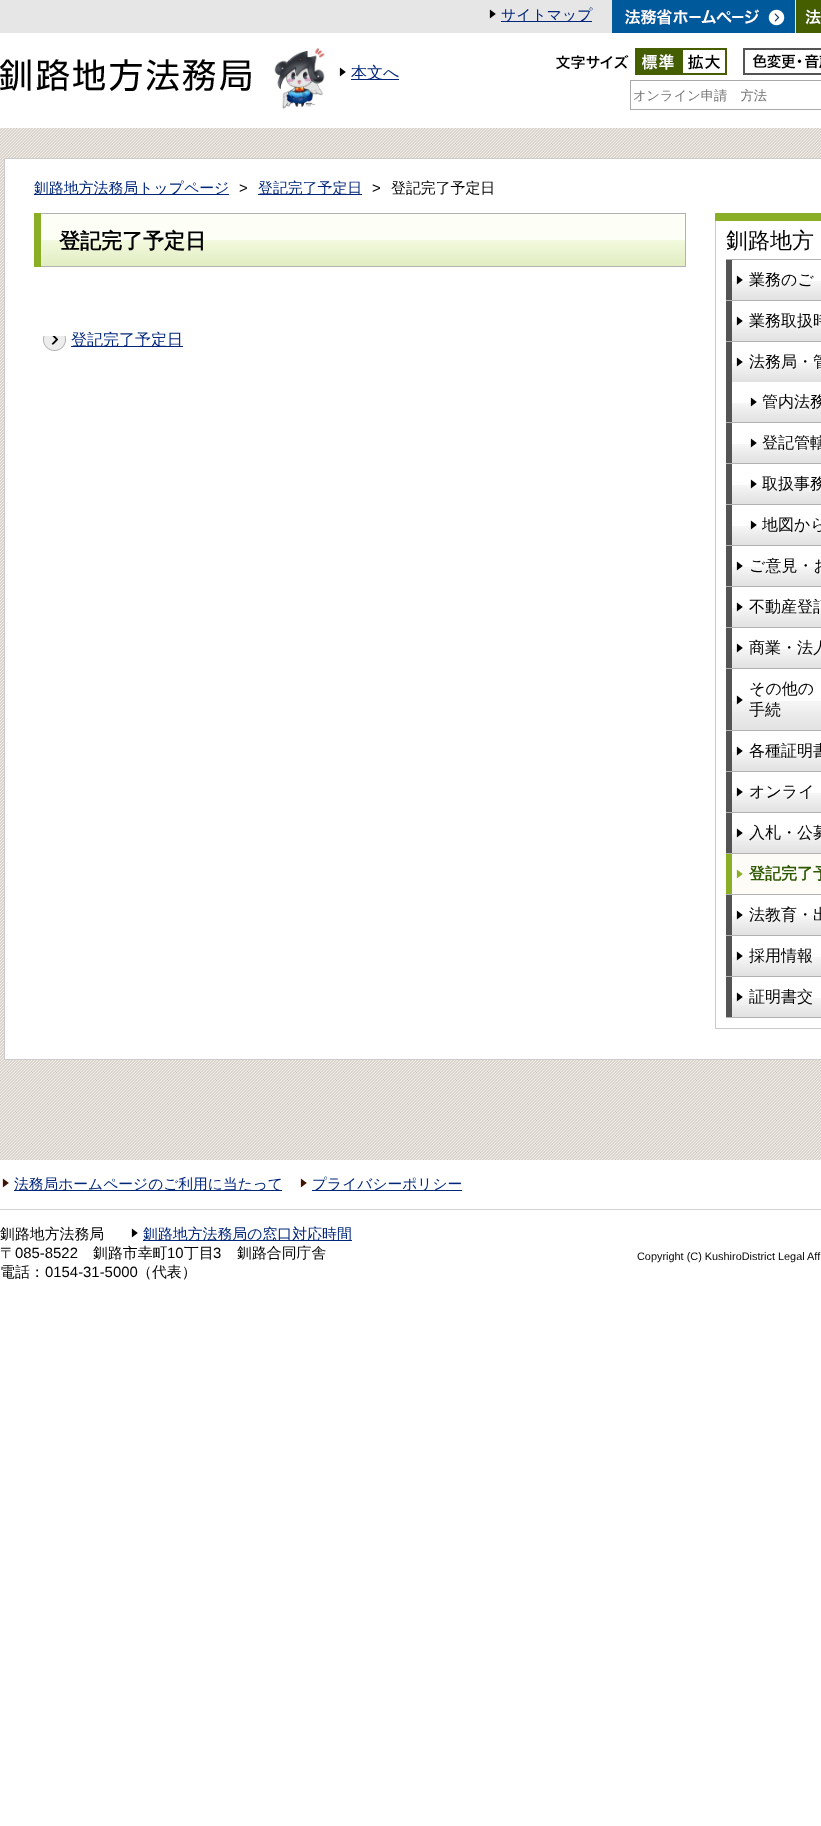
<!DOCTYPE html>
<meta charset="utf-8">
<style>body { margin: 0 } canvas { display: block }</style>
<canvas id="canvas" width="821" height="1826"></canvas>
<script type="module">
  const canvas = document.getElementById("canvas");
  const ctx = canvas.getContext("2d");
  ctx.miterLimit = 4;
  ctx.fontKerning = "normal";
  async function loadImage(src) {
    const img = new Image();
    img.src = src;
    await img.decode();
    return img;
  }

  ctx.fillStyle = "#ffffff";
  ctx.fillRect(0, 0, 821, 1826);
  ctx.fillStyle = "#e6e6e6";
  ctx.fillRect(0, 0, 796, 33);
  ctx.drawImage(await loadImage("img1.png"), 489, 9, 7, 10);
  ctx.fillStyle = "#00267a";
  ctx.fillRect(501, 21, 91, 1);
  ctx.font = "500 14.9px WenQuanYi Zen Hei";
  ctx.fillText("サイトマップ", 501, 20);
  ctx.drawImage(await loadImage("img2.png"), 612, 0, 183, 33);
  ctx.drawImage(await loadImage("img3.png"), 796, 0, 25, 33);
  ctx.drawImage(await loadImage("img4.png"), 0, 59, 251, 32);
  ctx.drawImage(await loadImage("img5.png"), 274, 48, 51, 61);
  ctx.drawImage(await loadImage("img6.png"), 339, 67, 7, 10);
  ctx.fillRect(351, 79, 48, 1);
  ctx.font = "500 16px WenQuanYi Zen Hei";
  ctx.fillText("本文へ", 351, 78);
  ctx.drawImage(await loadImage("img7.png"), 556, 55, 73, 15);
  ctx.drawImage(await loadImage("img8.png"), 635, 48, 46, 27);
  ctx.drawImage(await loadImage("img9.png"), 681, 48, 46, 27);
  ctx.drawImage(await loadImage("img10.png"), 743, 48, 78, 27);
  ctx.strokeStyle = "#a9a9a9";
  ctx.strokeRect(630.5, 80.5, 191, 29);
  ctx.font = "500 13.25px WenQuanYi Zen Hei";
  ctx.fillStyle = "#757575";
  ctx.fillText("オンライン申請　方法", 633, 100);
  ctx.drawImage(await loadImage("img11.png"), 0, 128, 821, 1032);
  ctx.fillStyle = "#ffffff";
  ctx.beginPath();
  ctx.rect(4.5, 158.5, 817, 901);
  ctx.fill();
  ctx.strokeStyle = "#cbcbcb";
  ctx.stroke();
  ctx.fillStyle = "#00267a";
  ctx.fillRect(34, 194, 195, 1);
  ctx.font = "500 14.9px WenQuanYi Zen Hei";
  ctx.fillText("釧路地方法務局トップページ", 34, 193);
  ctx.font = "14.9px Liberation Sans";
  ctx.fillStyle = "#000000";
  ctx.fillText(">", 239, 193);
  ctx.fillStyle = "#00267a";
  ctx.fillRect(258, 194, 104, 1);
  ctx.font = "500 14.9px WenQuanYi Zen Hei";
  ctx.fillText("登記完了予定日", 258, 193);
  ctx.font = "14.9px Liberation Sans";
  ctx.fillStyle = "#000000";
  ctx.fillText(">", 372, 193);
  ctx.font = "500 14.9px WenQuanYi Zen Hei";
  ctx.fillText("登記完了予定日", 391, 193);
  ctx.drawImage(await loadImage("img12.png"), 41, 214, 644, 52);
  ctx.fillStyle = "#b1b1b1";
  ctx.beginPath();
  ctx.moveTo(34, 213);
  ctx.lineTo(686, 213);
  ctx.lineTo(685, 214);
  ctx.lineTo(41, 214);
  ctx.closePath();
  ctx.fill();
  ctx.fillRect(685, 213, 1, 54);
  ctx.beginPath();
  ctx.moveTo(686, 267);
  ctx.lineTo(34, 267);
  ctx.lineTo(41, 266);
  ctx.lineTo(685, 266);
  ctx.closePath();
  ctx.fill();
  ctx.fillStyle = "#8aaf27";
  ctx.fillRect(34, 213, 7, 54);
  ctx.font = "bold 21px WenQuanYi Zen Hei";
  ctx.fillStyle = "#000000";
  ctx.fillText("登記完了予定日", 59, 248);
  ctx.drawImage(await loadImage("img13.png"), 43, 336, 23, 15);
  ctx.fillStyle = "#00267a";
  ctx.fillRect(71, 346, 112, 1);
  ctx.font = "500 16px WenQuanYi Zen Hei";
  ctx.fillText("登記完了予定日", 71, 345);
  ctx.fillStyle = "#8aaf27";
  ctx.beginPath();
  ctx.moveTo(715, 213);
  ctx.lineTo(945, 213);
  ctx.lineTo(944, 220);
  ctx.lineTo(716, 220);
  ctx.closePath();
  ctx.fill();
  ctx.fillStyle = "#cbcbcb";
  ctx.fillRect(715, 1028, 106, 1);
  ctx.beginPath();
  ctx.moveTo(715, 1029);
  ctx.lineTo(715, 213);
  ctx.lineTo(716, 220);
  ctx.lineTo(716, 1028);
  ctx.closePath();
  ctx.fill();
  ctx.fillStyle = "#8aaf27";
  ctx.fillRect(715, 214, 106, 7);
  ctx.font = "500 22px WenQuanYi Zen Hei";
  ctx.fillStyle = "#000000";
  ctx.fillText("釧路地方", 726, 248);
  ctx.fillStyle = "#b1b1b1";
  ctx.fillRect(726, 1017, 95, 1);
  ctx.fillRect(726, 259, 95, 1);
  ctx.drawImage(await loadImage("img14.png"), 732, 281, 89, 19);
  ctx.fillStyle = "#545454";
  ctx.fillRect(726, 260, 6, 40);
  ctx.drawImage(await loadImage("img15.png"), 736, 275, 7, 10);
  ctx.font = "500 16px WenQuanYi Zen Hei";
  ctx.fillStyle = "#000000";
  ctx.fillText("業務のご", 749, 285);
  ctx.fillStyle = "#b1b1b1";
  ctx.fillRect(726, 300, 95, 1);
  ctx.drawImage(await loadImage("img14.png"), 732, 322, 89, 19);
  ctx.fillStyle = "#545454";
  ctx.fillRect(726, 301, 6, 40);
  ctx.drawImage(await loadImage("img15.png"), 736, 316, 7, 10);
  ctx.fillStyle = "#000000";
  ctx.fillText("業務取扱時", 749, 326);
  ctx.fillStyle = "#b1b1b1";
  ctx.fillRect(726, 341, 95, 1);
  ctx.drawImage(await loadImage("img14.png"), 732, 363, 89, 19);
  ctx.fillStyle = "#545454";
  ctx.fillRect(726, 342, 6, 80);
  ctx.drawImage(await loadImage("img15.png"), 736, 357, 7, 10);
  ctx.fillStyle = "#000000";
  ctx.fillText("法務局・管", 749, 367);
  ctx.drawImage(await loadImage("img14.png"), 732, 403, 89, 19);
  ctx.drawImage(await loadImage("img15.png"), 750, 397, 7, 10);
  ctx.fillText("管内法務", 762, 407);
  ctx.fillStyle = "#b1b1b1";
  ctx.fillRect(726, 422, 95, 1);
  ctx.drawImage(await loadImage("img14.png"), 732, 444, 89, 19);
  ctx.fillStyle = "#545454";
  ctx.fillRect(726, 423, 6, 40);
  ctx.drawImage(await loadImage("img15.png"), 750, 438, 7, 10);
  ctx.fillStyle = "#000000";
  ctx.fillText("登記管轄", 762, 448);
  ctx.fillStyle = "#b1b1b1";
  ctx.fillRect(726, 463, 95, 1);
  ctx.drawImage(await loadImage("img14.png"), 732, 485, 89, 19);
  ctx.fillStyle = "#545454";
  ctx.fillRect(726, 464, 6, 40);
  ctx.drawImage(await loadImage("img15.png"), 750, 479, 7, 10);
  ctx.fillStyle = "#000000";
  ctx.fillText("取扱事務", 762, 489);
  ctx.fillStyle = "#b1b1b1";
  ctx.fillRect(726, 504, 95, 1);
  ctx.drawImage(await loadImage("img14.png"), 732, 526, 89, 19);
  ctx.fillStyle = "#545454";
  ctx.fillRect(726, 505, 6, 40);
  ctx.drawImage(await loadImage("img15.png"), 750, 520, 7, 10);
  ctx.fillStyle = "#000000";
  ctx.fillText("地図から", 762, 530);
  ctx.fillStyle = "#b1b1b1";
  ctx.fillRect(726, 545, 95, 1);
  ctx.drawImage(await loadImage("img14.png"), 732, 567, 89, 19);
  ctx.fillStyle = "#545454";
  ctx.fillRect(726, 546, 6, 40);
  ctx.drawImage(await loadImage("img15.png"), 736, 561, 7, 10);
  ctx.fillStyle = "#000000";
  ctx.fillText("ご意見・お", 749, 571);
  ctx.fillStyle = "#b1b1b1";
  ctx.fillRect(726, 586, 95, 1);
  ctx.drawImage(await loadImage("img14.png"), 732, 608, 89, 19);
  ctx.fillStyle = "#545454";
  ctx.fillRect(726, 587, 6, 40);
  ctx.drawImage(await loadImage("img15.png"), 736, 602, 7, 10);
  ctx.fillStyle = "#000000";
  ctx.fillText("不動産登記", 749, 612);
  ctx.fillStyle = "#b1b1b1";
  ctx.fillRect(726, 627, 95, 1);
  ctx.drawImage(await loadImage("img14.png"), 732, 649, 89, 19);
  ctx.fillStyle = "#545454";
  ctx.fillRect(726, 628, 6, 40);
  ctx.drawImage(await loadImage("img15.png"), 736, 643, 7, 10);
  ctx.fillStyle = "#000000";
  ctx.fillText("商業・法人", 749, 653);
  ctx.fillStyle = "#b1b1b1";
  ctx.fillRect(726, 668, 95, 1);
  ctx.drawImage(await loadImage("img16.png"), 732, 701, 89, 29);
  ctx.fillStyle = "#545454";
  ctx.fillRect(726, 669, 6, 61);
  ctx.fillStyle = "#000000";
  ctx.fillText("その他の", 749, 694);
  ctx.drawImage(await loadImage("img17.png"), 736, 695, 7, 10);
  ctx.fillText("手続", 749, 715);
  ctx.fillStyle = "#b1b1b1";
  ctx.fillRect(726, 730, 95, 1);
  ctx.drawImage(await loadImage("img14.png"), 732, 752, 89, 19);
  ctx.fillStyle = "#545454";
  ctx.fillRect(726, 731, 6, 40);
  ctx.drawImage(await loadImage("img15.png"), 736, 746, 7, 10);
  ctx.fillStyle = "#000000";
  ctx.fillText("各種証明書", 749, 756);
  ctx.fillStyle = "#b1b1b1";
  ctx.fillRect(726, 771, 95, 1);
  ctx.drawImage(await loadImage("img14.png"), 732, 793, 89, 19);
  ctx.fillStyle = "#545454";
  ctx.fillRect(726, 772, 6, 40);
  ctx.drawImage(await loadImage("img15.png"), 736, 787, 7, 10);
  ctx.fillStyle = "#000000";
  ctx.fillText("オンライ", 749, 797);
  ctx.fillStyle = "#b1b1b1";
  ctx.fillRect(726, 812, 95, 1);
  ctx.drawImage(await loadImage("img14.png"), 732, 834, 89, 19);
  ctx.fillStyle = "#545454";
  ctx.fillRect(726, 813, 6, 40);
  ctx.drawImage(await loadImage("img15.png"), 736, 828, 7, 10);
  ctx.fillStyle = "#000000";
  ctx.fillText("入札・公募", 749, 838);
  ctx.fillStyle = "#b1b1b1";
  ctx.fillRect(726, 853, 95, 1);
  ctx.fillStyle = "#fdfcf7";
  ctx.fillRect(732, 854, 89, 40);
  ctx.fillStyle = "#8aaf27";
  ctx.fillRect(726, 854, 6, 40);
  ctx.drawImage(await loadImage("img18.png"), 736, 869, 7, 10);
  ctx.font = "bold 16px WenQuanYi Zen Hei";
  ctx.fillStyle = "#2e5802";
  ctx.fillText("登記完了予", 749, 879);
  ctx.fillStyle = "#b1b1b1";
  ctx.fillRect(726, 894, 95, 1);
  ctx.drawImage(await loadImage("img14.png"), 732, 916, 89, 19);
  ctx.fillStyle = "#545454";
  ctx.fillRect(726, 895, 6, 40);
  ctx.drawImage(await loadImage("img15.png"), 736, 910, 7, 10);
  ctx.font = "500 16px WenQuanYi Zen Hei";
  ctx.fillStyle = "#000000";
  ctx.fillText("法教育・出", 749, 920);
  ctx.fillStyle = "#b1b1b1";
  ctx.fillRect(726, 935, 95, 1);
  ctx.drawImage(await loadImage("img14.png"), 732, 957, 89, 19);
  ctx.fillStyle = "#545454";
  ctx.fillRect(726, 936, 6, 40);
  ctx.drawImage(await loadImage("img15.png"), 736, 951, 7, 10);
  ctx.fillStyle = "#000000";
  ctx.fillText("採用情報", 749, 961);
  ctx.fillStyle = "#b1b1b1";
  ctx.fillRect(726, 976, 95, 1);
  ctx.drawImage(await loadImage("img19.png"), 732, 998, 89, 19);
  ctx.fillStyle = "#545454";
  ctx.fillRect(726, 977, 6, 40);
  ctx.drawImage(await loadImage("img20.png"), 736, 992, 7, 10);
  ctx.fillStyle = "#000000";
  ctx.fillText("証明書交", 749, 1002);
  ctx.fillStyle = "#d2d2d2";
  ctx.fillRect(0, 1209, 821, 1);
  ctx.drawImage(await loadImage("img21.png"), 2, 1178, 7, 10);
  ctx.fillStyle = "#00267a";
  ctx.fillRect(14, 1190, 268, 1);
  ctx.font = "500 14.75px WenQuanYi Zen Hei";
  ctx.fillText("法務局ホームページのご利用に当たって", 14, 1189);
  ctx.drawImage(await loadImage("img21.png"), 300, 1178, 7, 10);
  ctx.fillRect(312, 1190, 150, 1);
  ctx.fillText("プライバシーポリシー", 312, 1189);
  ctx.font = "500 14.9px WenQuanYi Zen Hei";
  ctx.fillStyle = "#000000";
  ctx.fillText("釧路地方法務局", 0, 1239);
  ctx.drawImage(await loadImage("img6.png"), 131, 1228, 7, 10);
  ctx.fillStyle = "#00267a";
  ctx.fillRect(143, 1240, 209, 1);
  ctx.fillText("釧路地方法務局の窓口対応時間", 143, 1239);
  ctx.fillStyle = "#000000";
  ctx.fillText("〒", 0, 1258);
  ctx.font = "14.9px Liberation Sans";
  ctx.fillText("085-8522", 15, 1258);
  ctx.font = "500 14.9px WenQuanYi Zen Hei";
  ctx.fillText("釧路市幸町", 93, 1258);
  ctx.font = "14.9px Liberation Sans";
  ctx.fillText("10", 167, 1258);
  ctx.font = "500 14.9px WenQuanYi Zen Hei";
  ctx.fillText("丁目", 184, 1258);
  ctx.font = "14.9px Liberation Sans";
  ctx.fillText("3", 213, 1258);
  ctx.font = "500 14.9px WenQuanYi Zen Hei";
  ctx.fillText("釧路合同庁舎", 237, 1258);
  ctx.fillText("電話：", 0, 1277);
  ctx.font = "14.9px Liberation Sans";
  ctx.fillText("0154-31-5000", 45, 1277);
  ctx.font = "500 14.9px WenQuanYi Zen Hei";
  ctx.fillText("（代表）", 137, 1277);
  ctx.font = "10.9px Liberation Sans";
  ctx.fillText("Copyright (C) KushiroDistrict Legal Aff", 637, 1260);
</script>
